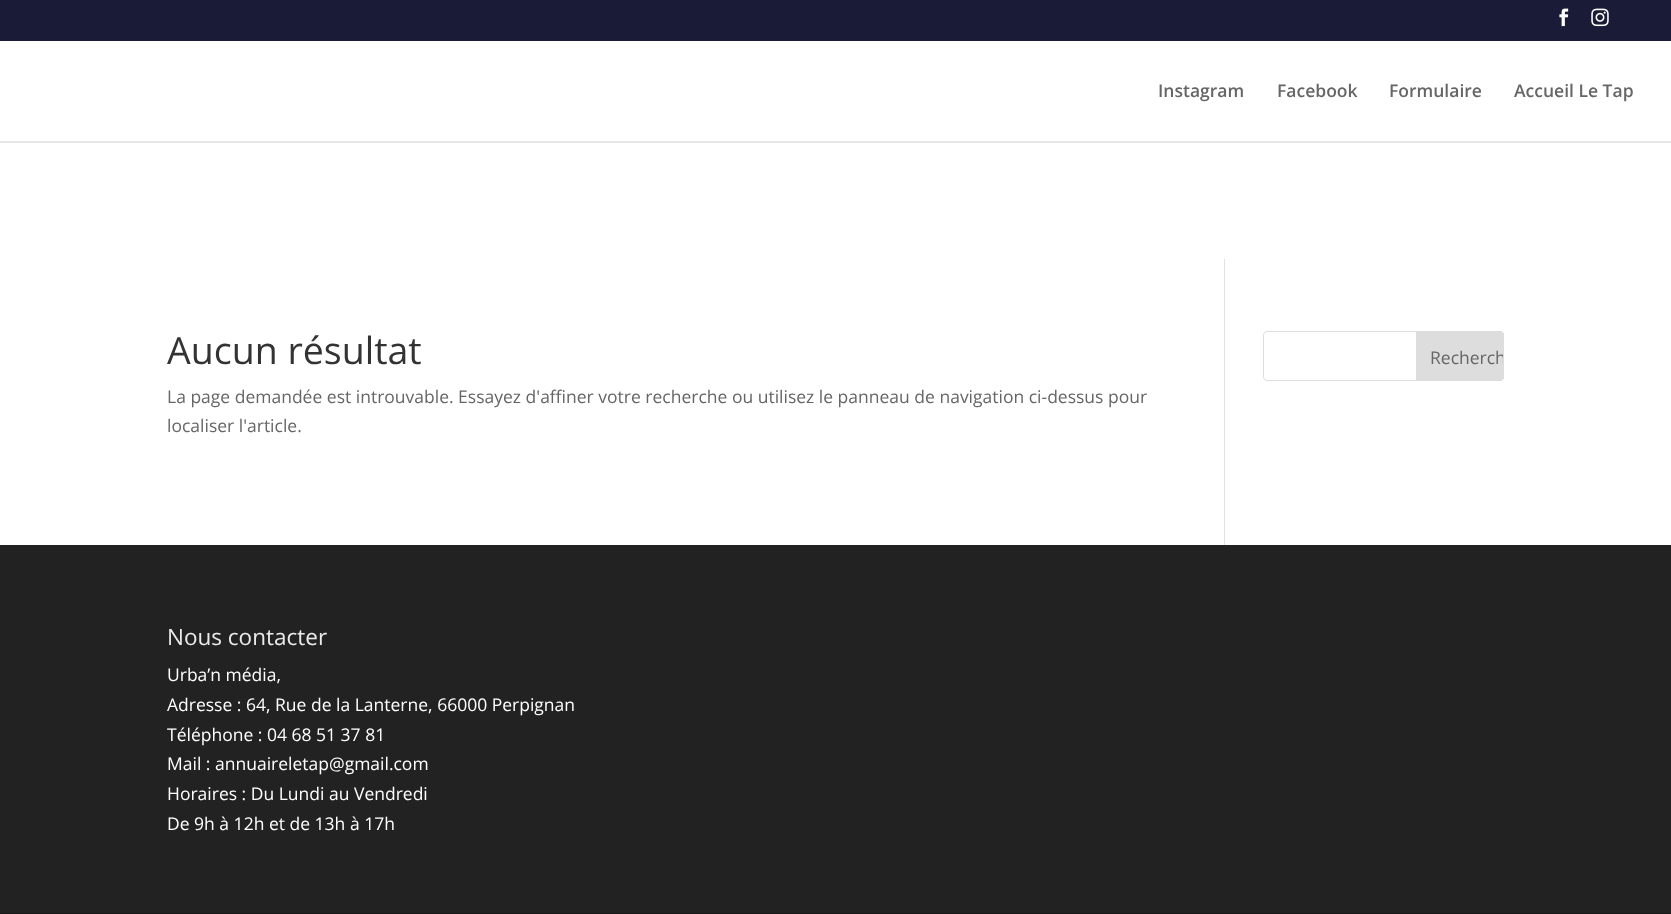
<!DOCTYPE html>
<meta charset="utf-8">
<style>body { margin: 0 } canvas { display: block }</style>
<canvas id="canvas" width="1671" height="914"></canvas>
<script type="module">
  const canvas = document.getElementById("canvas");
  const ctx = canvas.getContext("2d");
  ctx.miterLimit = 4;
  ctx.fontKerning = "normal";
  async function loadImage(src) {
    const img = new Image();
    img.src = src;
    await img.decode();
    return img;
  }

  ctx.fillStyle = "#ffffff";
  ctx.fillRect(0, 0, 1671, 914);
  ctx.fillStyle = "rgba(3, 6, 35, 0.91)";
  ctx.fillRect(0, 0, 1671, 41);
  ctx.drawImage(await loadImage("img1.png"), 1559, 8, 10, 19);
  ctx.drawImage(await loadImage("img2.png"), 1591, 8, 18, 19);
  ctx.fillStyle = "#e6e6e6";
  ctx.fillRect(0, 141, 1671, 2);
  ctx.font = "600 17.5px Open Sans";
  ctx.fillStyle = "#666666";
  ctx.fillText("Instagram", 1158, 97);
  ctx.fillText("Facebook", 1277, 97);
  ctx.fillText("Formulaire", 1389, 97);
  ctx.fillText("Accueil Le Tap", 1514, 97);
  ctx.fillStyle = "#e2e2e2";
  ctx.fillRect(1224, 259, 1, 286);
  ctx.font = "37.5px Open Sans";
  ctx.fillStyle = "#333333";
  ctx.fillText("Aucun résultat", 167, 364);
  ctx.font = "17.5px Open Sans";
  ctx.fillStyle = "#666666";
  ctx.fillText("La page demandée est introuvable. Essayez d'affiner votre recherche ou utilisez le panneau de navigation ci-dessus pour", 167, 403);
  ctx.fillText("localiser l'article.", 167, 432);
  ctx.beginPath();
  ctx.roundRect(1263.5, 331.5, 240, 49, 3.5);
  ctx.strokeStyle = "#dddddd";
  ctx.stroke();
  ctx.fillStyle = "#dddddd";
  ctx.beginPath();
  ctx.roundRect(1416.5, 331.5, 87, 49, [0, 3.5, 3.5, 0]);
  ctx.fill();
  ctx.stroke();
  ctx.save();
  ctx.beginPath();
  ctx.roundRect(1418, 333, 85, 47, [0, 2.5, 2.5, 0]);
  ctx.clip();
  ctx.fillStyle = "#666666";
  ctx.fillText("Recherch", 1430, 364);
  ctx.restore();
  ctx.fillStyle = "#222222";
  ctx.fillRect(0, 545, 1671, 368);
  ctx.font = "22.5px Open Sans";
  ctx.fillStyle = "#ebebeb";
  ctx.fillText("Nous contacter", 167, 645);
  ctx.font = "17.5px Open Sans";
  ctx.fillStyle = "#ffffff";
  ctx.fillText("Urba’n média,", 167, 681);
  ctx.fillText("Adresse : 64, Rue de la Lanterne, 66000 Perpignan", 167, 711);
  ctx.fillText("Téléphone : 04 68 51 37 81", 167, 741);
  ctx.fillText("Mail : annuaireletap@gmail.com", 167, 770);
  ctx.fillText("Horaires : Du Lundi au Vendredi", 167, 800);
  ctx.fillText("De 9h à 12h et de 13h à 17h", 167, 830);
  ctx.fillStyle = "#171717";
  ctx.fillRect(0, 913, 1671, 1);
</script>
